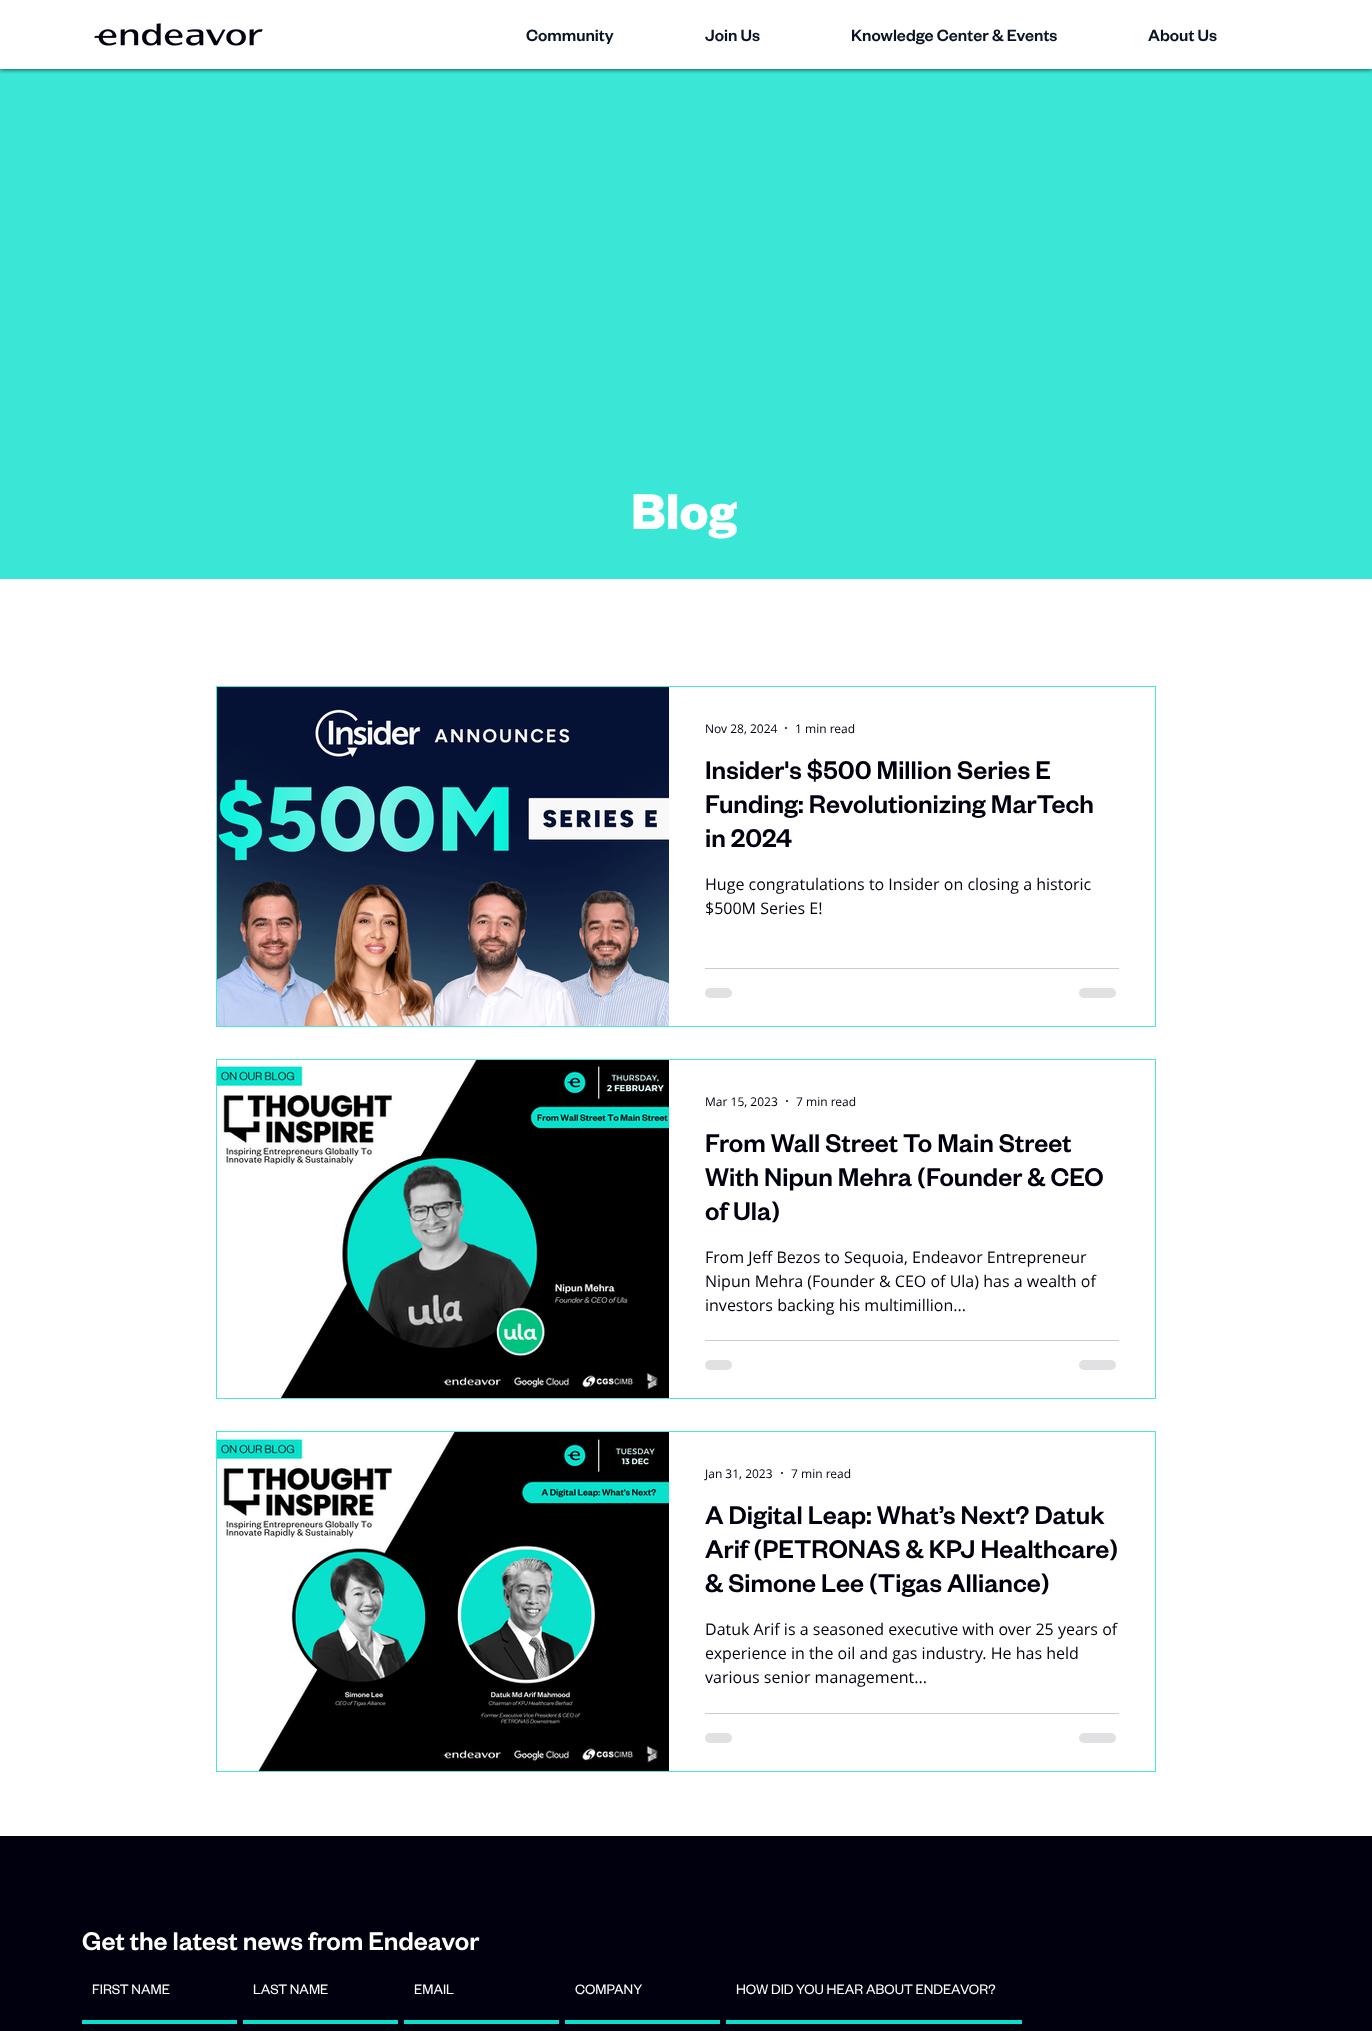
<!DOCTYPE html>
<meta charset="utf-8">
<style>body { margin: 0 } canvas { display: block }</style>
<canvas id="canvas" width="1372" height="2031"></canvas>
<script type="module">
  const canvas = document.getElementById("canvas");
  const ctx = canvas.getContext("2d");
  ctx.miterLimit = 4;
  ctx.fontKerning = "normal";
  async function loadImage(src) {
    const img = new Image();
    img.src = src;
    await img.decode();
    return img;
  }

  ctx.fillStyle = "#ffffff";
  ctx.fillRect(0, 0, 1372, 2031);
  ctx.fillStyle = "#3ae7d7";
  ctx.fillRect(0, 69, 1372, 510);
  ctx.save();
  ctx.beginPath();
  ctx.rect(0, 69, 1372, 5);
  ctx.clip();
  ctx.fillStyle = "rgba(0, 0, 0, 0.6)";
  ctx.filter = "blur(2px)";
  ctx.beginPath();
  ctx.rect(0, 1, 1372, 69);
  ctx.fill();
  ctx.filter = "none";
  ctx.restore();
  ctx.drawImage(await loadImage("img1.png"), 94, 23, 169, 23);
  ctx.font = "500 18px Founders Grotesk";
  ctx.fillStyle = "#081423";
  ctx.fillText("Community", 526, 41);
  ctx.fillText("Join Us", 705, 41);
  ctx.fillText("Knowledge Center & Events", 851, 41);
  ctx.fillText("About Us", 1148, 41);
  ctx.font = "bold 55px Founders Grotesk";
  ctx.fillStyle = "#ffffff";
  ctx.fillText("Blog", 631, 529);
  ctx.strokeStyle = "#47e9da";
  ctx.strokeRect(216.5, 686.5, 939, 340);
  ctx.drawImage(await loadImage("img2.png"), 217, 687, 452, 339);
  ctx.font = "12px Open Sans";
  ctx.fillStyle = "#01000f";
  ctx.fillText("Nov 28, 2024", 705, 733);
  ctx.beginPath();
  ctx.arc(786, 728, 1, 0, Math.PI * 2);
  ctx.fill();
  ctx.fillText("1 min read", 795, 733);
  ctx.font = "500 28px Founders Grotesk";
  ctx.fillText("Insider's $500 Million Series E", 705, 779);
  ctx.fillText("Funding: Revolutionizing MarTech", 705, 813);
  ctx.fillText("in 2024", 705, 847);
  ctx.font = "16px Open Sans";
  ctx.fillText("Huge congratulations to Insider on closing a historic", 705, 890);
  ctx.fillText("$500M Series E!", 705, 914);
  ctx.fillStyle = "#cccccf";
  ctx.fillRect(705, 968, 414, 1);
  ctx.fillStyle = "#e1e0e2";
  ctx.beginPath();
  ctx.roundRect(705, 988, 27, 10, 5);
  ctx.fill();
  ctx.beginPath();
  ctx.roundRect(1079, 988, 37, 10, 5);
  ctx.fill();
  ctx.strokeRect(216.5, 1059.5, 939, 339);
  ctx.drawImage(await loadImage("img3.png"), 217, 1060, 452, 338);
  ctx.font = "12px Open Sans";
  ctx.fillStyle = "#01000f";
  ctx.fillText("Mar 15, 2023", 705, 1106);
  ctx.beginPath();
  ctx.arc(787, 1101, 1, 0, Math.PI * 2);
  ctx.fill();
  ctx.fillText("7 min read", 796, 1106);
  ctx.font = "500 28px Founders Grotesk";
  ctx.fillText("From Wall Street To Main Street", 705, 1152);
  ctx.fillText("With Nipun Mehra (Founder & CEO", 705, 1186);
  ctx.fillText("of Ula)", 705, 1220);
  ctx.font = "16px Open Sans";
  ctx.fillText("From Jeff Bezos to Sequoia, Endeavor Entrepreneur", 705, 1263);
  ctx.fillText("Nipun Mehra (Founder & CEO of Ula) has a wealth of", 705, 1287);
  ctx.fillText("investors backing his multimillion...", 705, 1311);
  ctx.fillStyle = "#cccccf";
  ctx.fillRect(705, 1340, 414, 1);
  ctx.fillStyle = "#e1e0e2";
  ctx.beginPath();
  ctx.roundRect(705, 1360, 27, 10, 5);
  ctx.fill();
  ctx.beginPath();
  ctx.roundRect(1079, 1360, 37, 10, 5);
  ctx.fill();
  ctx.strokeRect(216.5, 1431.5, 939, 340);
  ctx.drawImage(await loadImage("img4.png"), 217, 1432, 452, 339);
  ctx.font = "12px Open Sans";
  ctx.fillStyle = "#01000f";
  ctx.fillText("Jan 31, 2023", 705, 1478);
  ctx.beginPath();
  ctx.arc(782, 1473, 1, 0, Math.PI * 2);
  ctx.fill();
  ctx.fillText("7 min read", 791, 1478);
  ctx.font = "500 28px Founders Grotesk";
  ctx.fillText("A Digital Leap: What’s Next? Datuk", 705, 1524);
  ctx.fillText("Arif (PETRONAS & KPJ Healthcare)", 705, 1558);
  ctx.fillText("& Simone Lee (Tigas Alliance)", 705, 1592);
  ctx.font = "16px Open Sans";
  ctx.fillText("Datuk Arif is a seasoned executive with over 25 years of", 705, 1635);
  ctx.fillText("experience in the oil and gas industry. He has held", 705, 1659);
  ctx.fillText("various senior management...", 705, 1683);
  ctx.fillStyle = "#cccccf";
  ctx.fillRect(705, 1713, 414, 1);
  ctx.fillStyle = "#e1e0e2";
  ctx.beginPath();
  ctx.roundRect(705, 1733, 27, 10, 5);
  ctx.fill();
  ctx.beginPath();
  ctx.roundRect(1079, 1733, 37, 10, 5);
  ctx.fill();
  ctx.fillStyle = "#01000f";
  ctx.fillRect(0, 1836, 1372, 195);
  ctx.font = "500 28px Founders Grotesk";
  ctx.fillStyle = "#ffffff";
  ctx.fillText("Get the latest news from Endeavor", 82, 1950);
  ctx.fillStyle = "#09e1cd";
  ctx.fillRect(82, 2020, 155, 4);
  ctx.font = "15px Founders Grotesk";
  ctx.fillStyle = "#ffffff";
  ctx.fillText("FIRST NAME", 92, 1994);
  ctx.fillStyle = "#09e1cd";
  ctx.fillRect(243, 2020, 155, 4);
  ctx.fillStyle = "#ffffff";
  ctx.fillText("LAST NAME", 253, 1994);
  ctx.fillStyle = "#09e1cd";
  ctx.fillRect(404, 2020, 155, 4);
  ctx.fillStyle = "#ffffff";
  ctx.fillText("EMAIL", 414, 1994);
  ctx.fillStyle = "#09e1cd";
  ctx.fillRect(565, 2020, 155, 4);
  ctx.fillStyle = "#ffffff";
  ctx.fillText("COMPANY", 575, 1994);
  ctx.fillStyle = "#09e1cd";
  ctx.fillRect(726, 2020, 296, 4);
  ctx.fillStyle = "#ffffff";
  ctx.fillText("HOW DID YOU HEAR ABOUT ENDEAVOR?", 736, 1994);
</script>
